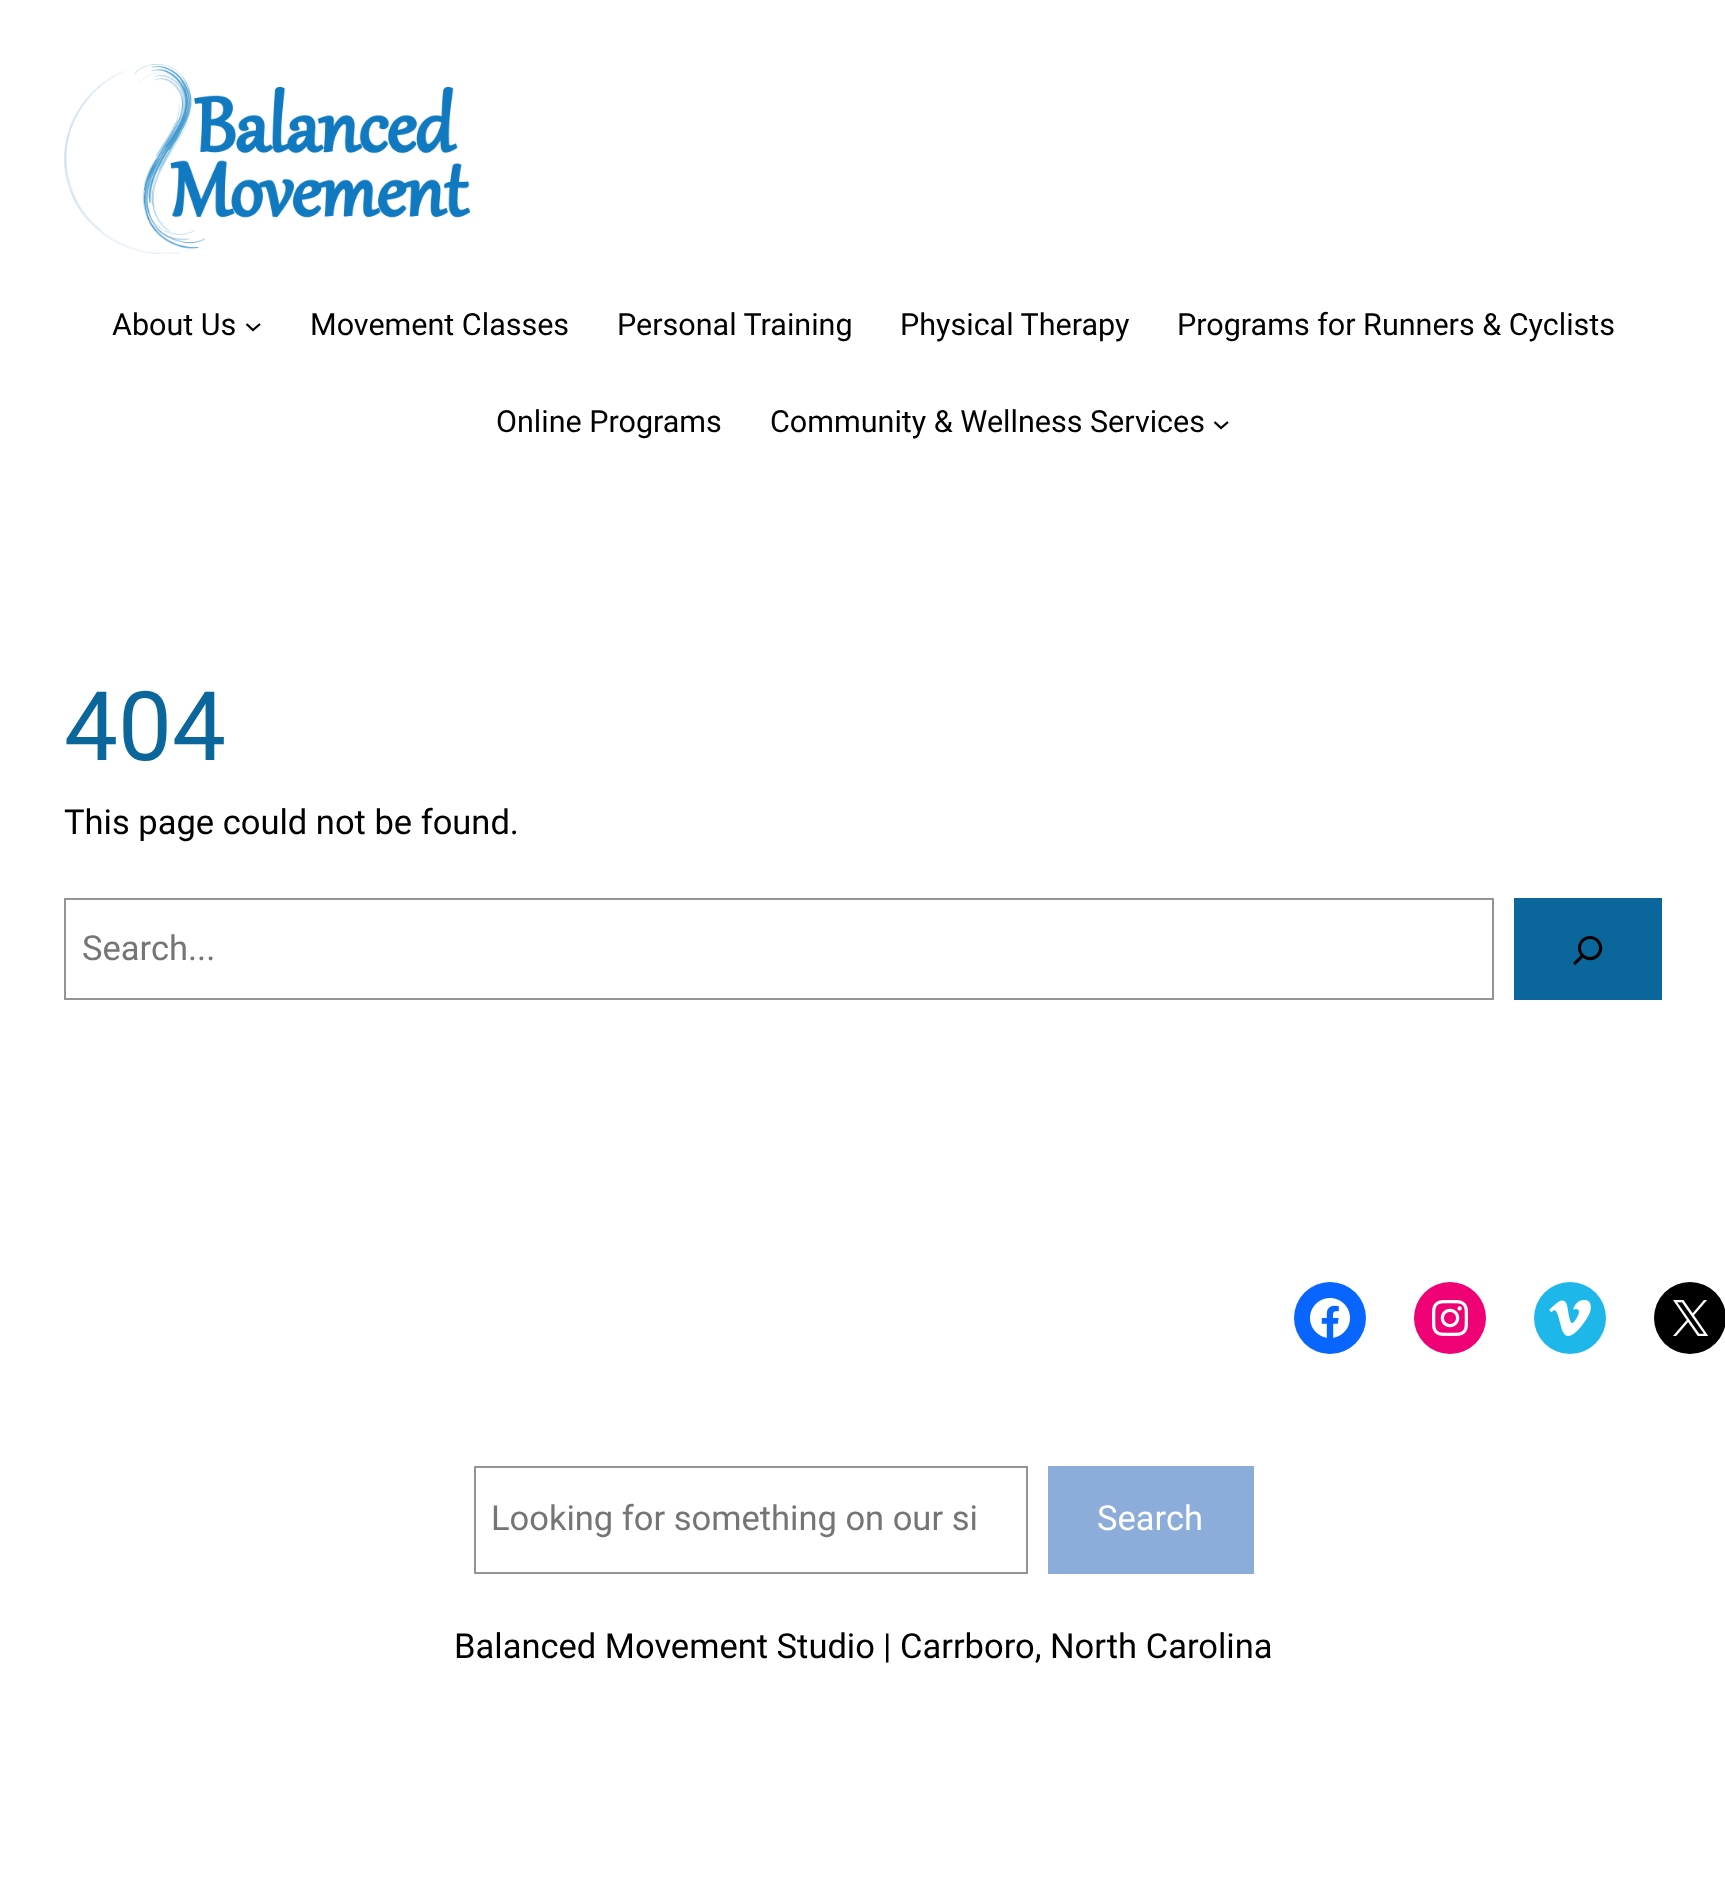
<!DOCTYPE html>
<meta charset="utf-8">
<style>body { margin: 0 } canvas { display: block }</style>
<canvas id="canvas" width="1725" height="1886"></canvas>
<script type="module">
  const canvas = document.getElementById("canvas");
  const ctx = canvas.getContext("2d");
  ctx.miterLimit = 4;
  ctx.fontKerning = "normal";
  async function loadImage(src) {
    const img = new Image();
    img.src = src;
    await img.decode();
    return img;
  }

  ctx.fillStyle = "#ffffff";
  ctx.fillRect(0, 0, 1725, 1886);
  ctx.drawImage(await loadImage("img1.png"), 64, 64, 406, 190);
  ctx.font = "30.5px Roboto";
  ctx.fillStyle = "#000000";
  ctx.fillText("About Us", 112, 335);
  ctx.beginPath();
  ctx.moveTo(246.5, 324);
  ctx.lineTo(253, 330);
  ctx.lineTo(260, 324);
  ctx.strokeStyle = "#000000";
  ctx.lineWidth = 2.3;
  ctx.stroke();
  ctx.fillText("Movement Classes", 310, 335);
  ctx.fillText("Personal Training", 617, 335);
  ctx.fillText("Physical Therapy", 900, 335);
  ctx.fillText("Programs for Runners & Cyclists", 1177, 335);
  ctx.fillText("Online Programs", 496, 432);
  ctx.fillText("Community & Wellness Services", 770, 432);
  ctx.beginPath();
  ctx.moveTo(1214.5, 422);
  ctx.lineTo(1221, 428);
  ctx.lineTo(1228, 422);
  ctx.stroke();
  ctx.font = "96px Roboto";
  ctx.fillStyle = "#0b669b";
  ctx.fillText("404", 64, 760);
  ctx.font = "34.5px Roboto";
  ctx.fillStyle = "#000000";
  ctx.fillText("This page could not be found.", 64, 834);
  ctx.strokeStyle = "#949494";
  ctx.lineWidth = 2;
  ctx.strokeRect(65, 899, 1428, 100);
  ctx.fillStyle = "#757575";
  ctx.fillText("Search...", 82, 960);
  ctx.fillStyle = "#0b669b";
  ctx.fillRect(1514, 898, 148, 102);
  ctx.drawImage(await loadImage("img2.png"), 1573, 936, 30, 30);
  ctx.fillStyle = "#0866ff";
  ctx.beginPath();
  ctx.arc(1330, 1318, 36, 0, Math.PI * 2);
  ctx.fill();
  ctx.drawImage(await loadImage("img3.png"), 1310, 1298, 40, 40);
  ctx.fillStyle = "#f00075";
  ctx.beginPath();
  ctx.arc(1450, 1318, 36, 0, Math.PI * 2);
  ctx.fill();
  ctx.drawImage(await loadImage("img4.png"), 1432, 1300, 36, 36);
  ctx.fillStyle = "#1eb7ea";
  ctx.beginPath();
  ctx.arc(1570, 1318, 36, 0, Math.PI * 2);
  ctx.fill();
  ctx.drawImage(await loadImage("img5.png"), 1549, 1300, 42, 36);
  ctx.fillStyle = "#000000";
  ctx.beginPath();
  ctx.arc(1690, 1318, 36, 0, Math.PI * 2);
  ctx.fill();
  ctx.drawImage(await loadImage("img6.png"), 1673, 1300, 36, 36);
  ctx.strokeRect(475, 1467, 552, 106);
  ctx.fillStyle = "#757575";
  ctx.fillText("Looking for something on our si", 491, 1530);
  ctx.fillStyle = "#8cacda";
  ctx.fillRect(1048, 1466, 206, 108);
  ctx.fillStyle = "#ffffff";
  ctx.fillText("Search", 1097, 1530);
  ctx.fillStyle = "#000000";
  ctx.fillText("Balanced Movement Studio", 454, 1658);
  ctx.fillText("| Carrboro, North Carolina", 883, 1658);
</script>
